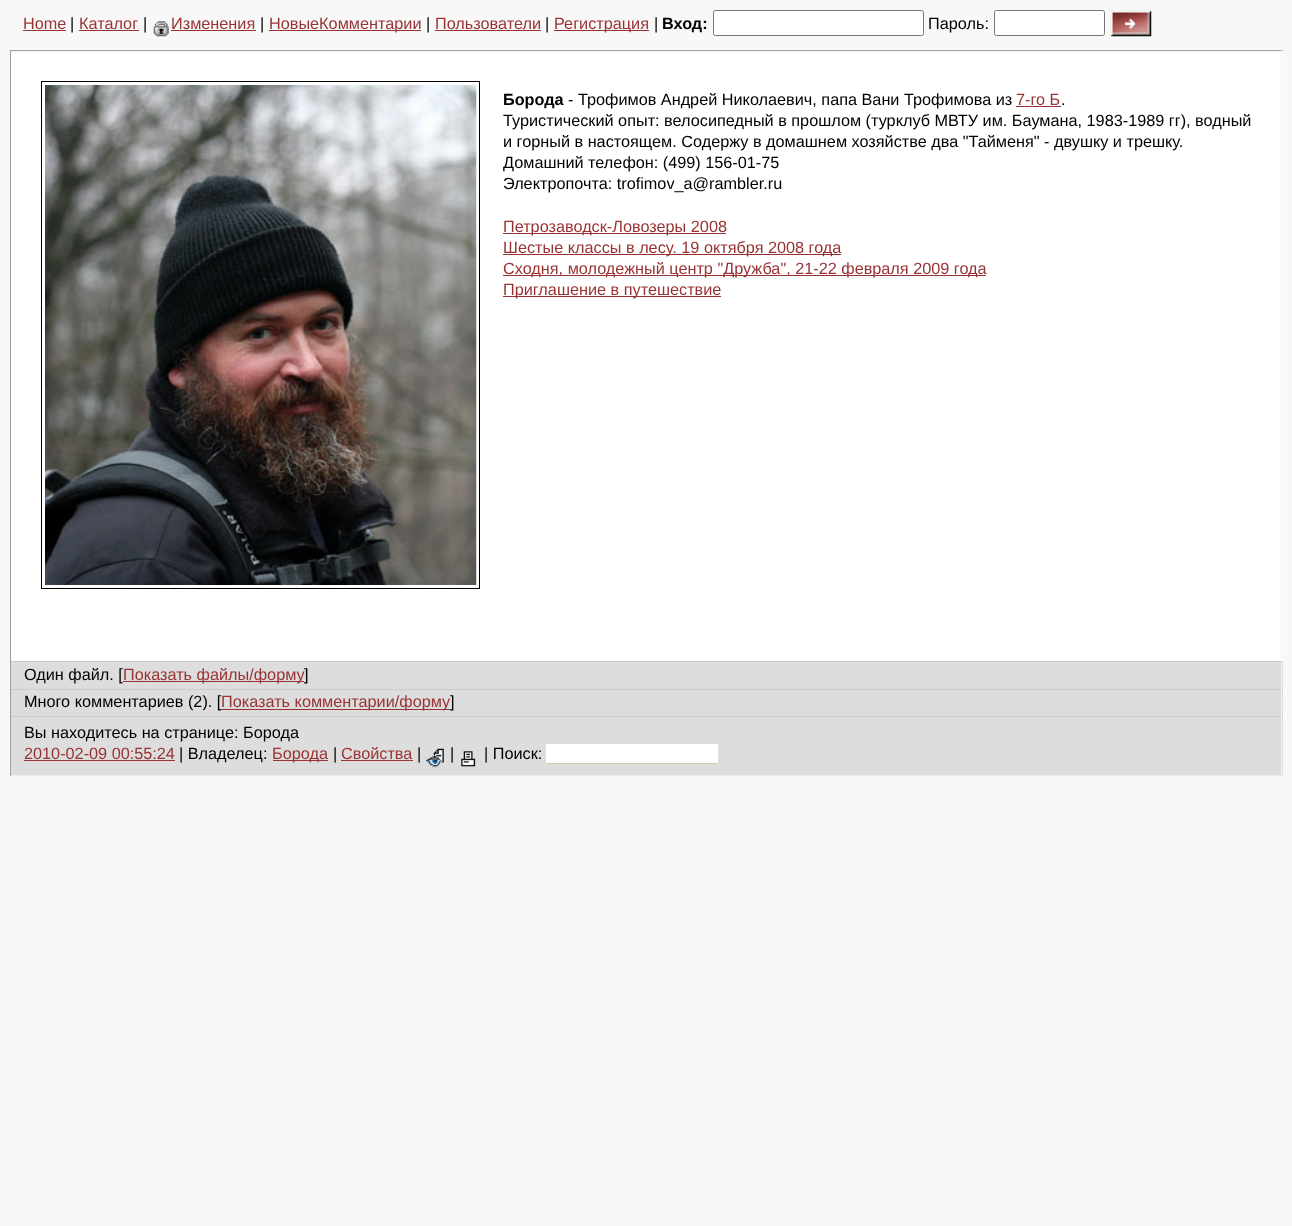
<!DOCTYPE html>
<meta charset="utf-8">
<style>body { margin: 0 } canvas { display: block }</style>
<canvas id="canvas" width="1292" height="1226"></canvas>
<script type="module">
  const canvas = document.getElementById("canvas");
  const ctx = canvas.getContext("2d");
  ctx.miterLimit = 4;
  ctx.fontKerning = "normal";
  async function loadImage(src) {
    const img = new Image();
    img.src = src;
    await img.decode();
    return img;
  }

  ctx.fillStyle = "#f8f8f8";
  ctx.fillRect(0, 0, 1292, 1226);
  ctx.font = "16.25px Liberation Sans";
  ctx.fillStyle = "#993333";
  ctx.fillText("Home", 23, 29);
  ctx.fillRect(23, 30, 43, 1);
  ctx.fillStyle = "#000000";
  ctx.fillText("|", 70, 29);
  ctx.fillStyle = "#993333";
  ctx.fillText("Каталог", 79, 29);
  ctx.fillRect(79, 30, 60, 1);
  ctx.fillStyle = "#000000";
  ctx.fillText("|", 143, 29);
  ctx.drawImage(await loadImage("img1.png"), 153, 21, 16, 16);
  ctx.fillStyle = "#993333";
  ctx.fillText("Изменения", 171, 29);
  ctx.fillRect(171, 30, 85, 1);
  ctx.fillStyle = "#000000";
  ctx.fillText("|", 260, 29);
  ctx.fillStyle = "#993333";
  ctx.fillRect(269, 30, 152, 1);
  ctx.fillText("НовыеКомментарии", 269, 29);
  ctx.fillStyle = "#000000";
  ctx.fillText("|", 426, 29);
  ctx.fillStyle = "#993333";
  ctx.fillText("Пользователи", 435, 29);
  ctx.fillRect(435, 30, 106, 1);
  ctx.fillStyle = "#000000";
  ctx.fillText("|", 545, 29);
  ctx.fillStyle = "#993333";
  ctx.fillRect(554, 30, 95, 1);
  ctx.fillText("Регистрация", 554, 29);
  ctx.fillStyle = "#000000";
  ctx.fillText("|", 654, 29);
  ctx.font = "bold 16.25px Liberation Sans";
  ctx.fillText("Вход:", 662, 29);
  ctx.fillStyle = "#ffffff";
  ctx.beginPath();
  ctx.roundRect(713.5, 10.5, 210, 25, 2);
  ctx.fill();
  ctx.strokeStyle = "#767676";
  ctx.stroke();
  ctx.font = "16.25px Liberation Sans";
  ctx.fillStyle = "#000000";
  ctx.fillText("Пароль:", 928, 29);
  ctx.fillStyle = "#ffffff";
  ctx.beginPath();
  ctx.roundRect(994.5, 10.5, 110, 25, 2);
  ctx.fill();
  ctx.stroke();
  ctx.drawImage(await loadImage("img2.png"), 1110, 10, 42, 27);
  ctx.fillStyle = "#9f9f9f";
  ctx.fillRect(10, 50, 1273, 1);
  ctx.fillStyle = "#eeeeee";
  ctx.fillRect(1281, 50, 1, 3);
  ctx.fillStyle = "#9f9f9f";
  ctx.fillRect(10, 50, 1, 611);
  ctx.fillStyle = "#ffffff";
  ctx.fillRect(11, 53, 1272, 608);
  ctx.fillStyle = "#eeeeee";
  ctx.fillRect(1281, 53, 1, 608);
  ctx.strokeStyle = "#000000";
  ctx.strokeRect(41.5, 81.5, 438, 507);
  ctx.drawImage(await loadImage("img3.png"), 45, 85, 432, 500);
  ctx.font = "bold 16.25px Liberation Sans";
  ctx.fillStyle = "#000000";
  ctx.fillText("Борода", 503, 105);
  ctx.font = "16.25px Liberation Sans";
  ctx.fillText("- Трофимов Андрей Николаевич, папа Вани Трофимова из", 568, 105);
  ctx.fillStyle = "#993333";
  ctx.fillText("7-го Б", 1016, 105);
  ctx.fillRect(1016, 106, 45, 1);
  ctx.fillStyle = "#000000";
  ctx.fillText(".", 1061, 105);
  ctx.fillText("Туристический опыт: велосипедный в прошлом (турклуб МВТУ им. Баумана, 1983-1989 гг), водный", 503, 126);
  ctx.fillText("и горный в настоящем. Содержу в домашнем хозяйстве два \"Тайменя\" - двушку и трешку.", 503, 147);
  ctx.fillText("Домашний телефон: (499) 156-01-75", 503, 168);
  ctx.fillText("Электропочта: trofimov_a@rambler.ru", 503, 189);
  ctx.fillStyle = "#993333";
  ctx.fillRect(503, 233, 223, 1);
  ctx.fillText("Петрозаводск-Ловозеры 2008", 503, 232);
  ctx.fillRect(503, 254, 338, 1);
  ctx.fillText("Шестые классы в лесу. 19 октября 2008 года", 503, 253);
  ctx.fillRect(503, 275, 483, 1);
  ctx.fillText("Сходня, молодежный центр \"Дружба\", 21-22 февраля 2009 года", 503, 274);
  ctx.fillRect(503, 296, 218, 1);
  ctx.fillText("Приглашение в путешествие", 503, 295);
  ctx.fillStyle = "#dddddd";
  ctx.fillRect(11, 662, 1272, 27);
  ctx.fillStyle = "#cccccc";
  ctx.fillRect(10, 661, 1273, 1);
  ctx.fillStyle = "#eeeeee";
  ctx.fillRect(1281, 661, 1, 28);
  ctx.fillStyle = "#9f9f9f";
  ctx.fillRect(10, 661, 1, 28);
  ctx.fillStyle = "#000000";
  ctx.fillText("Один файл. [", 24, 680);
  ctx.fillStyle = "#993333";
  ctx.fillRect(123, 681, 181, 1);
  ctx.fillText("Показать файлы/форму", 123, 680);
  ctx.fillStyle = "#000000";
  ctx.fillText("]", 304, 680);
  ctx.fillStyle = "#dddddd";
  ctx.fillRect(11, 690, 1272, 26);
  ctx.fillStyle = "#cccccc";
  ctx.fillRect(10, 689, 1273, 1);
  ctx.fillStyle = "#eeeeee";
  ctx.fillRect(1281, 689, 1, 27);
  ctx.fillStyle = "#9f9f9f";
  ctx.fillRect(10, 689, 1, 27);
  ctx.fillStyle = "#000000";
  ctx.fillText("Много комментариев (2). [", 24, 707);
  ctx.fillStyle = "#993333";
  ctx.fillRect(221, 709, 229, 1);
  ctx.fillText("Показать комментарии/форму", 221, 707);
  ctx.fillStyle = "#000000";
  ctx.fillText("]", 450, 707);
  ctx.fillStyle = "#dddddd";
  ctx.fillRect(11, 717, 1272, 58);
  ctx.fillStyle = "#cccccc";
  ctx.fillRect(10, 716, 1273, 1);
  ctx.fillStyle = "#eeeeee";
  ctx.fillRect(1281, 716, 1, 60);
  ctx.fillRect(10, 775, 1273, 1);
  ctx.fillStyle = "#9f9f9f";
  ctx.fillRect(10, 716, 1, 60);
  ctx.fillStyle = "#000000";
  ctx.fillText("Вы находитесь на странице: Борода", 24, 738);
  ctx.fillStyle = "#993333";
  ctx.fillText("2010-02-09 00:55:24", 24, 759);
  ctx.fillRect(24, 760, 151, 1);
  ctx.fillStyle = "#000000";
  ctx.fillText("| Владелец:", 179, 759);
  ctx.fillStyle = "#993333";
  ctx.fillRect(273, 760, 55, 1);
  ctx.fillText("Борода", 272, 759);
  ctx.fillStyle = "#000000";
  ctx.fillText("|", 333, 759);
  ctx.fillStyle = "#993333";
  ctx.fillText("Свойства", 341, 759);
  ctx.fillRect(341, 760, 72, 1);
  ctx.fillStyle = "#000000";
  ctx.fillText("|", 417, 759);
  ctx.drawImage(await loadImage("img4.png"), 426, 748, 18, 20);
  ctx.fillText("|", 450, 759);
  ctx.drawImage(await loadImage("img5.png"), 461, 751, 15, 16);
  ctx.fillText("| Поиск:", 484, 759);
  ctx.fillStyle = "#ffffff";
  ctx.fillRect(546, 744, 172, 19);
  ctx.fillStyle = "#ccccaa";
  ctx.fillRect(546, 763, 172, 1);
</script>
